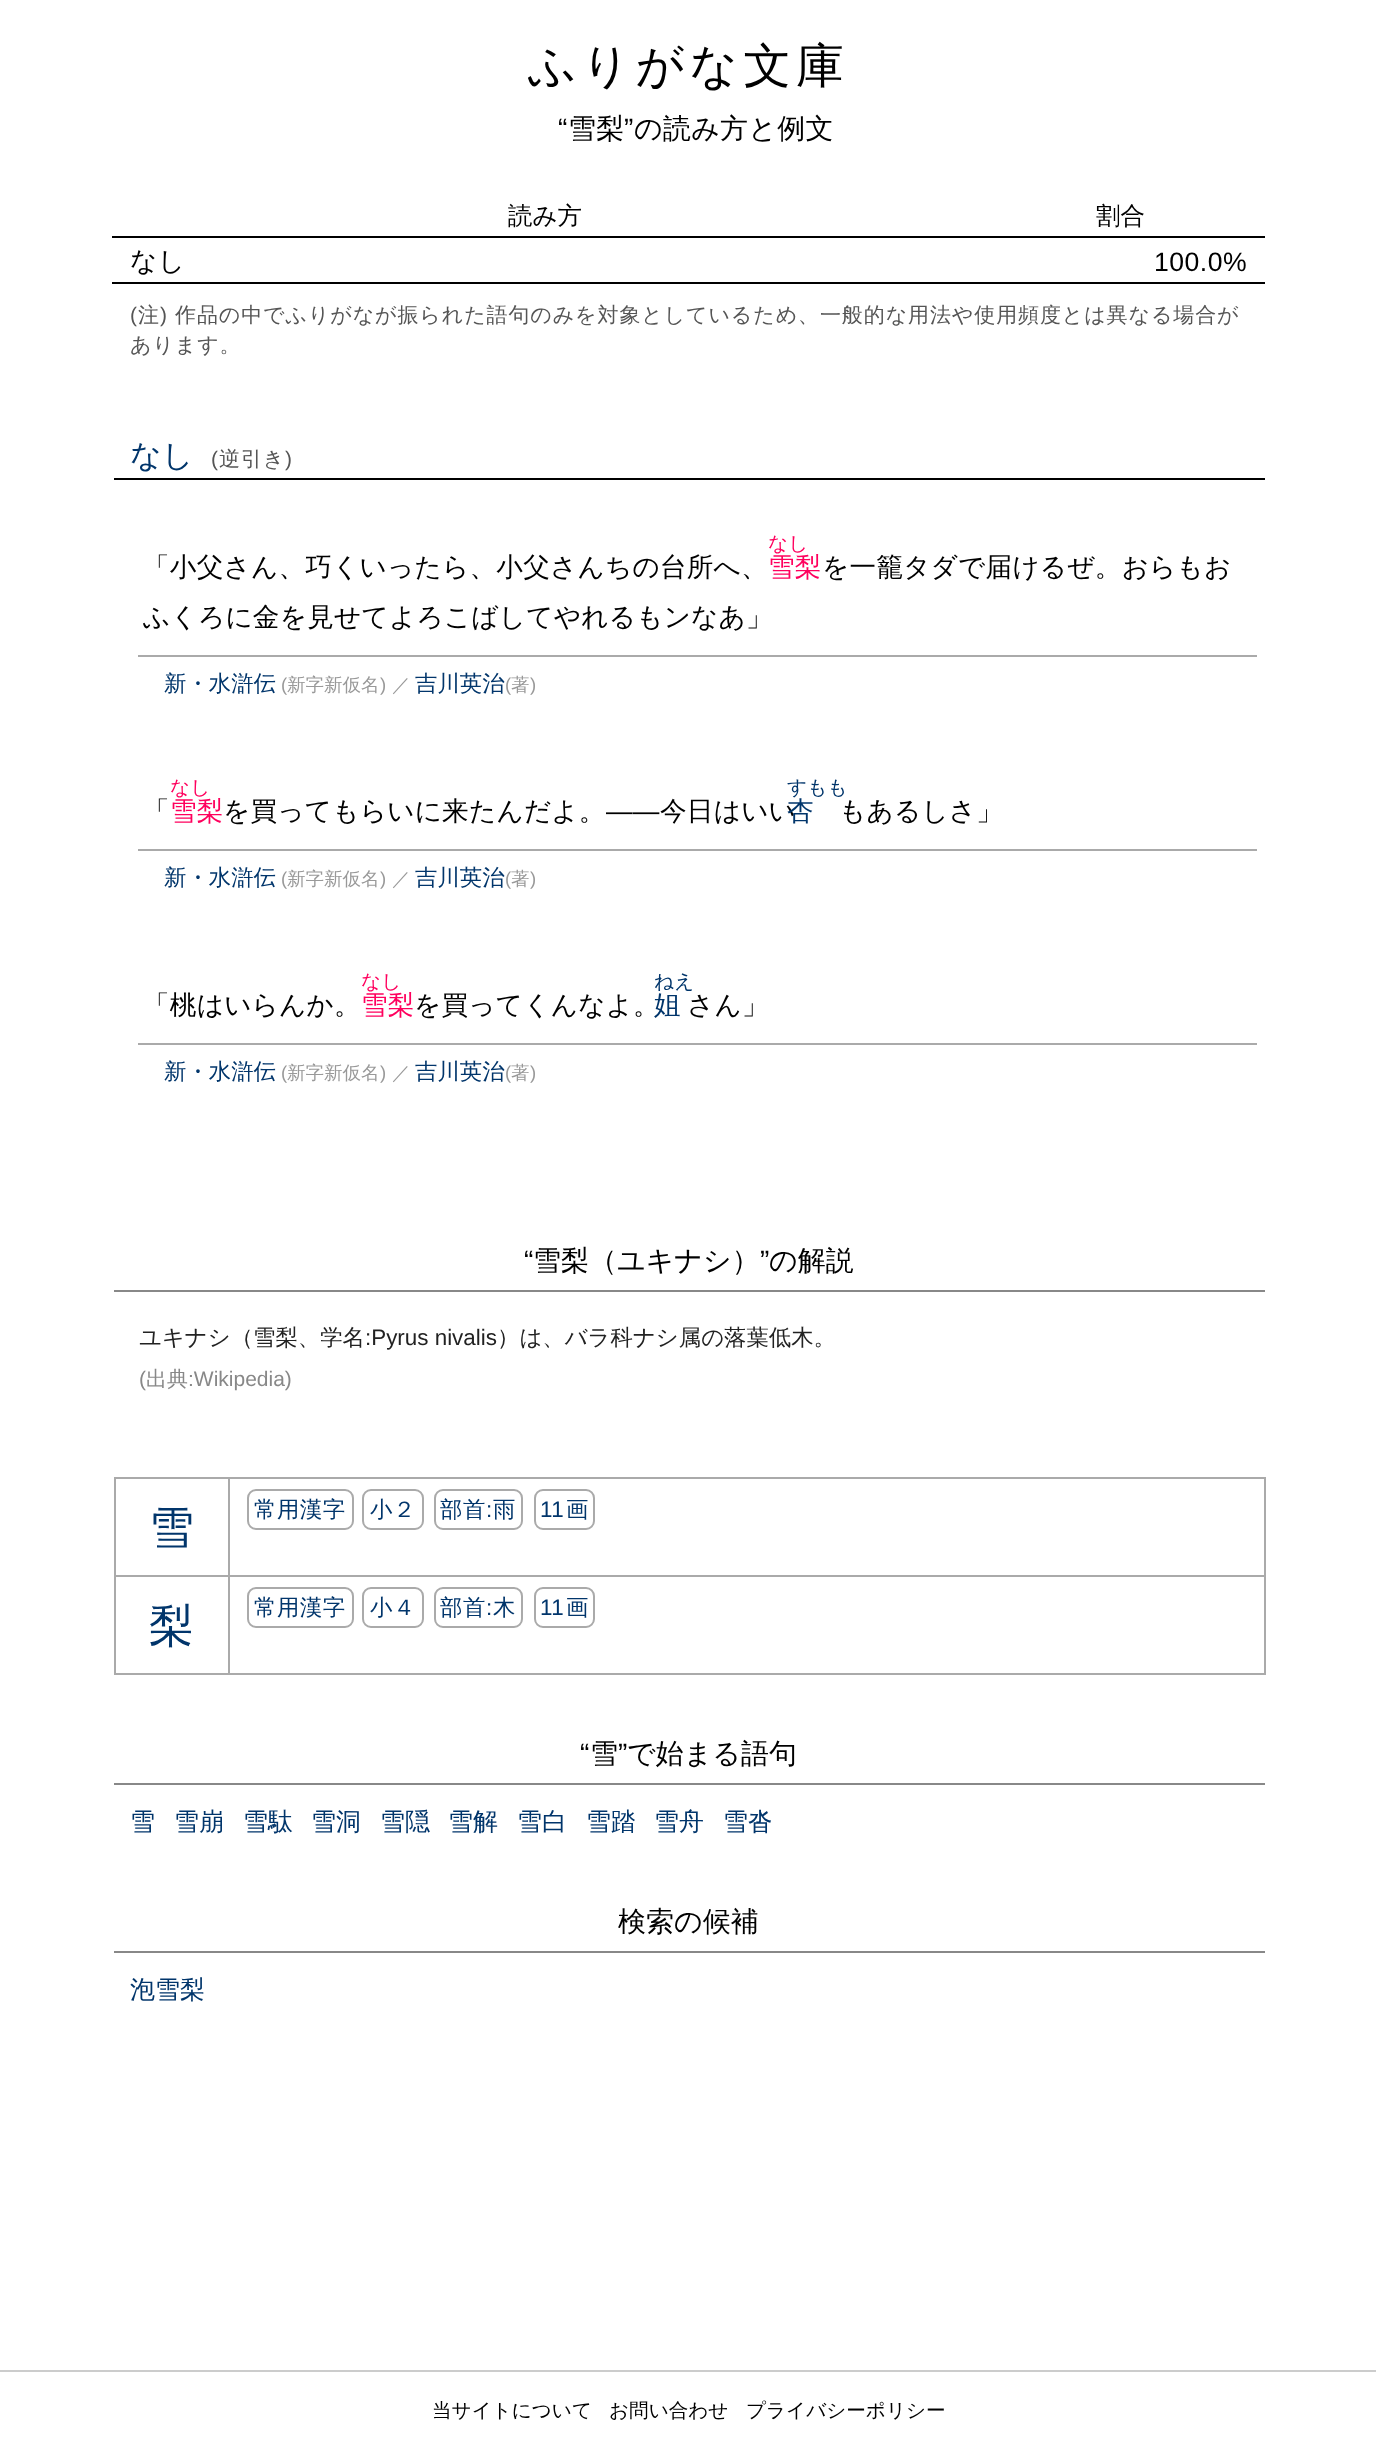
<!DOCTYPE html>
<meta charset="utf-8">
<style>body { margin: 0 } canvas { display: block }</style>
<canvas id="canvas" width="1376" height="2441"></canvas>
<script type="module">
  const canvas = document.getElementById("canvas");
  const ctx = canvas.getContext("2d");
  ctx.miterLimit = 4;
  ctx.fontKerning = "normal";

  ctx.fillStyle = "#ffffff";
  ctx.fillRect(0, 0, 1376, 2441);
  ctx.letterSpacing = "5.25px";
  ctx.font = "500 47.5px WenQuanYi Zen Hei";
  ctx.fillStyle = "#000000";
  ctx.fillText("ふりがな文庫", 528, 82);
  ctx.letterSpacing = "0.25px";
  ctx.font = "28px Liberation Sans";
  ctx.fillText("“", 558, 138);
  ctx.font = "500 28px WenQuanYi Zen Hei";
  ctx.fillText("雪梨", 568, 138);
  ctx.font = "28px Liberation Sans";
  ctx.fillText("”", 624, 138);
  ctx.font = "500 28px WenQuanYi Zen Hei";
  ctx.fillText("の読み方と例文", 634, 138);
  ctx.fillRect(112, 236, 1153, 2);
  ctx.letterSpacing = "0px";
  ctx.font = "500 24.5px WenQuanYi Zen Hei";
  ctx.fillText("読み方", 508, 224);
  ctx.fillText("割合", 1096, 224);
  ctx.fillRect(112, 282, 1153, 2);
  ctx.letterSpacing = "0.5px";
  ctx.font = "500 26.6px WenQuanYi Zen Hei";
  ctx.fillText("なし", 130, 270);
  ctx.font = "26.6px Liberation Sans";
  ctx.fillText("100.0%", 1154, 271);
  ctx.letterSpacing = "0.9px";
  ctx.font = "21px Liberation Sans";
  ctx.fillStyle = "#555555";
  ctx.fillText("(", 130, 322);
  ctx.font = "500 21px WenQuanYi Zen Hei";
  ctx.fillText("注", 138, 322);
  ctx.font = "21px Liberation Sans";
  ctx.fillText(")", 160, 322);
  ctx.font = "500 21px WenQuanYi Zen Hei";
  ctx.fillText("作品の中でふりがなが振られた語句のみを対象としているため、一般的な用法や使用頻度とは異なる場合が", 175, 322);
  ctx.fillText("あります。", 130, 352);
  ctx.fillStyle = "#000000";
  ctx.fillRect(114, 478, 1151, 2);
  ctx.letterSpacing = "0px";
  ctx.font = "500 31px WenQuanYi Zen Hei";
  ctx.fillStyle = "#01356b";
  ctx.fillText("なし", 130, 466);
  ctx.letterSpacing = "0.9px";
  ctx.font = "21px Liberation Sans";
  ctx.fillStyle = "#555555";
  ctx.fillText("(", 211, 466);
  ctx.font = "500 21px WenQuanYi Zen Hei";
  ctx.fillText("逆引き", 219, 466);
  ctx.font = "21px Liberation Sans";
  ctx.fillText(")", 285, 466);
  ctx.fillStyle = "#aaaaaa";
  ctx.fillRect(138, 655, 1119, 2);
  ctx.letterSpacing = "0.25px";
  ctx.font = "500 26.6px WenQuanYi Zen Hei";
  ctx.fillStyle = "#000000";
  ctx.fillText("「小父さん、巧くいったら、小父さんちの台所へ、", 143, 576);
  ctx.font = "500 19.6px WenQuanYi Zen Hei";
  ctx.fillStyle = "#ff005d";
  ctx.fillText("なし", 768, 550);
  ctx.font = "500 26.6px WenQuanYi Zen Hei";
  ctx.fillText("雪梨", 768, 576);
  ctx.fillStyle = "#000000";
  ctx.fillText("を一籠タダで届けるぜ。おらもお", 822, 576);
  ctx.fillText("ふくろに金を見せてよろこばしてやれるもンなあ」", 143, 626);
  ctx.letterSpacing = "0px";
  ctx.font = "500 22.4px WenQuanYi Zen Hei";
  ctx.fillStyle = "#01356b";
  ctx.fillText("新・水滸伝", 164, 691);
  ctx.font = "18.5px Liberation Sans";
  ctx.fillStyle = "#999999";
  ctx.fillText("(", 281, 691);
  ctx.font = "500 18.5px WenQuanYi Zen Hei";
  ctx.fillText("新字新仮名", 287, 691);
  ctx.font = "18.5px Liberation Sans";
  ctx.fillText(")", 380, 691);
  ctx.font = "500 18.5px WenQuanYi Zen Hei";
  ctx.fillText("／", 392, 691);
  ctx.font = "500 22.4px WenQuanYi Zen Hei";
  ctx.fillStyle = "#01356b";
  ctx.fillText("吉川英治", 415, 691);
  ctx.font = "18.5px Liberation Sans";
  ctx.fillStyle = "#999999";
  ctx.fillText("(", 505, 691);
  ctx.font = "500 18.5px WenQuanYi Zen Hei";
  ctx.fillText("著", 511, 691);
  ctx.font = "18.5px Liberation Sans";
  ctx.fillText(")", 530, 691);
  ctx.fillStyle = "#aaaaaa";
  ctx.fillRect(138, 849, 1119, 2);
  ctx.letterSpacing = "0.25px";
  ctx.font = "500 26.6px WenQuanYi Zen Hei";
  ctx.fillStyle = "#000000";
  ctx.fillText("「", 143, 820);
  ctx.font = "500 19.6px WenQuanYi Zen Hei";
  ctx.fillStyle = "#ff005d";
  ctx.fillText("なし", 170, 794);
  ctx.font = "500 26.6px WenQuanYi Zen Hei";
  ctx.fillText("雪梨", 170, 820);
  ctx.fillStyle = "#000000";
  ctx.fillText("を買ってもらいに来たんだよ。", 223, 820);
  ctx.font = "26.6px Liberation Sans";
  ctx.fillText("——", 606, 820);
  ctx.font = "500 26.6px WenQuanYi Zen Hei";
  ctx.fillText("今日はいい", 660, 820);
  ctx.font = "500 19.6px WenQuanYi Zen Hei";
  ctx.fillStyle = "#01356b";
  ctx.fillText("すもも", 787, 794);
  ctx.font = "500 26.6px WenQuanYi Zen Hei";
  ctx.fillText("杏", 787, 820);
  ctx.fillStyle = "#000000";
  ctx.fillText("もあるしさ」", 839, 820);
  ctx.letterSpacing = "0px";
  ctx.font = "500 22.4px WenQuanYi Zen Hei";
  ctx.fillStyle = "#01356b";
  ctx.fillText("新・水滸伝", 164, 885);
  ctx.font = "18.5px Liberation Sans";
  ctx.fillStyle = "#999999";
  ctx.fillText("(", 281, 885);
  ctx.font = "500 18.5px WenQuanYi Zen Hei";
  ctx.fillText("新字新仮名", 287, 885);
  ctx.font = "18.5px Liberation Sans";
  ctx.fillText(")", 380, 885);
  ctx.font = "500 18.5px WenQuanYi Zen Hei";
  ctx.fillText("／", 392, 885);
  ctx.font = "500 22.4px WenQuanYi Zen Hei";
  ctx.fillStyle = "#01356b";
  ctx.fillText("吉川英治", 415, 885);
  ctx.font = "18.5px Liberation Sans";
  ctx.fillStyle = "#999999";
  ctx.fillText("(", 505, 885);
  ctx.font = "500 18.5px WenQuanYi Zen Hei";
  ctx.fillText("著", 511, 885);
  ctx.font = "18.5px Liberation Sans";
  ctx.fillText(")", 530, 885);
  ctx.fillStyle = "#aaaaaa";
  ctx.fillRect(138, 1043, 1119, 2);
  ctx.letterSpacing = "0.25px";
  ctx.font = "500 26.6px WenQuanYi Zen Hei";
  ctx.fillStyle = "#000000";
  ctx.fillText("「桃はいらんか。", 143, 1014);
  ctx.font = "500 19.6px WenQuanYi Zen Hei";
  ctx.fillStyle = "#ff005d";
  ctx.fillText("なし", 361, 988);
  ctx.font = "500 26.6px WenQuanYi Zen Hei";
  ctx.fillText("雪梨", 361, 1014);
  ctx.fillStyle = "#000000";
  ctx.fillText("を買ってくんなよ。", 414, 1014);
  ctx.font = "500 19.6px WenQuanYi Zen Hei";
  ctx.fillStyle = "#01356b";
  ctx.fillText("ねえ", 654, 988);
  ctx.font = "500 26.6px WenQuanYi Zen Hei";
  ctx.fillText("姐", 654, 1014);
  ctx.fillStyle = "#000000";
  ctx.fillText("さん」", 687, 1014);
  ctx.letterSpacing = "0px";
  ctx.font = "500 22.4px WenQuanYi Zen Hei";
  ctx.fillStyle = "#01356b";
  ctx.fillText("新・水滸伝", 164, 1079);
  ctx.font = "18.5px Liberation Sans";
  ctx.fillStyle = "#999999";
  ctx.fillText("(", 281, 1079);
  ctx.font = "500 18.5px WenQuanYi Zen Hei";
  ctx.fillText("新字新仮名", 287, 1079);
  ctx.font = "18.5px Liberation Sans";
  ctx.fillText(")", 380, 1079);
  ctx.font = "500 18.5px WenQuanYi Zen Hei";
  ctx.fillText("／", 392, 1079);
  ctx.font = "500 22.4px WenQuanYi Zen Hei";
  ctx.fillStyle = "#01356b";
  ctx.fillText("吉川英治", 415, 1079);
  ctx.font = "18.5px Liberation Sans";
  ctx.fillStyle = "#999999";
  ctx.fillText("(", 505, 1079);
  ctx.font = "500 18.5px WenQuanYi Zen Hei";
  ctx.fillText("著", 511, 1079);
  ctx.font = "18.5px Liberation Sans";
  ctx.fillText(")", 530, 1079);
  ctx.fillStyle = "#888888";
  ctx.fillRect(114, 1290, 1151, 2);
  ctx.font = "28px Liberation Sans";
  ctx.fillStyle = "#000000";
  ctx.fillText("“", 524, 1270);
  ctx.font = "500 28px WenQuanYi Zen Hei";
  ctx.fillText("雪梨（ユキナシ）", 533, 1270);
  ctx.font = "28px Liberation Sans";
  ctx.fillText("”", 760, 1270);
  ctx.font = "500 28px WenQuanYi Zen Hei";
  ctx.fillText("の解説", 769, 1270);
  ctx.font = "500 22.4px WenQuanYi Zen Hei";
  ctx.fillStyle = "#222222";
  ctx.fillText("ユキナシ（雪梨、学名", 139, 1345);
  ctx.font = "22.4px Liberation Sans";
  ctx.fillText(":Pyrus nivalis", 365, 1345);
  ctx.font = "500 22.4px WenQuanYi Zen Hei";
  ctx.fillText("）は、バラ科ナシ属の落葉低木。", 497, 1345);
  ctx.font = "21px Liberation Sans";
  ctx.fillStyle = "#888888";
  ctx.fillText("(", 139, 1386);
  ctx.font = "500 21px WenQuanYi Zen Hei";
  ctx.fillText("出典", 146, 1386);
  ctx.font = "21px Liberation Sans";
  ctx.fillText(":Wikipedia)", 188, 1386);
  ctx.fillStyle = "#aaaaaa";
  ctx.fillRect(114, 1477, 1151, 2);
  ctx.fillRect(114, 1575, 1151, 2);
  ctx.fillRect(1264, 1575, 2, 100);
  ctx.fillRect(1264, 1477, 2, 100);
  ctx.fillRect(114, 1673, 1151, 2);
  ctx.fillRect(114, 1575, 2, 100);
  ctx.fillRect(114, 1477, 2, 100);
  ctx.letterSpacing = "0.5px";
  ctx.font = "500 45px WenQuanYi Zen Hei";
  ctx.fillStyle = "#01356b";
  ctx.fillText("雪", 149, 1543);
  ctx.beginPath();
  ctx.roundRect(248, 1490, 105, 39, 8);
  ctx.strokeStyle = "#aaaaaa";
  ctx.lineWidth = 2;
  ctx.stroke();
  ctx.font = "500 22.4px WenQuanYi Zen Hei";
  ctx.fillText("常用漢字", 254, 1517);
  ctx.beginPath();
  ctx.roundRect(363, 1490, 60, 39, 8);
  ctx.stroke();
  ctx.fillText("小２", 370, 1517);
  ctx.beginPath();
  ctx.roundRect(435, 1490, 87, 39, 8);
  ctx.stroke();
  ctx.fillText("部首", 440, 1517);
  ctx.font = "22.4px Liberation Sans";
  ctx.fillText(":", 486, 1517);
  ctx.font = "500 22.4px WenQuanYi Zen Hei";
  ctx.fillText("⾬", 493, 1517);
  ctx.beginPath();
  ctx.roundRect(535, 1490, 59, 39, 8);
  ctx.stroke();
  ctx.font = "22.4px Liberation Sans";
  ctx.fillText("11", 540, 1517);
  ctx.font = "500 22.4px WenQuanYi Zen Hei";
  ctx.fillText("画", 566, 1517);
  ctx.fillStyle = "#aaaaaa";
  ctx.fillRect(228, 1477, 2, 198);
  ctx.font = "500 45px WenQuanYi Zen Hei";
  ctx.fillStyle = "#01356b";
  ctx.fillText("梨", 149, 1641);
  ctx.beginPath();
  ctx.roundRect(248, 1588, 105, 39, 8);
  ctx.stroke();
  ctx.font = "500 22.4px WenQuanYi Zen Hei";
  ctx.fillText("常用漢字", 254, 1615);
  ctx.beginPath();
  ctx.roundRect(363, 1588, 60, 39, 8);
  ctx.stroke();
  ctx.fillText("小４", 370, 1615);
  ctx.beginPath();
  ctx.roundRect(435, 1588, 87, 39, 8);
  ctx.stroke();
  ctx.fillText("部首", 440, 1615);
  ctx.font = "22.4px Liberation Sans";
  ctx.fillText(":", 486, 1615);
  ctx.font = "500 22.4px WenQuanYi Zen Hei";
  ctx.fillText("⽊", 493, 1615);
  ctx.beginPath();
  ctx.roundRect(535, 1588, 59, 39, 8);
  ctx.stroke();
  ctx.font = "22.4px Liberation Sans";
  ctx.fillText("11", 540, 1615);
  ctx.font = "500 22.4px WenQuanYi Zen Hei";
  ctx.fillText("画", 566, 1615);
  ctx.fillStyle = "#888888";
  ctx.fillRect(114, 1783, 1151, 2);
  ctx.letterSpacing = "0px";
  ctx.font = "28px Liberation Sans";
  ctx.fillStyle = "#000000";
  ctx.fillText("“", 580, 1763);
  ctx.font = "500 28px WenQuanYi Zen Hei";
  ctx.fillText("雪", 590, 1763);
  ctx.font = "28px Liberation Sans";
  ctx.fillText("”", 618, 1763);
  ctx.font = "500 28px WenQuanYi Zen Hei";
  ctx.fillText("で始まる語句", 627, 1763);
  ctx.font = "500 25px WenQuanYi Zen Hei";
  ctx.fillStyle = "#01356b";
  ctx.fillText("雪", 130, 1830);
  ctx.fillText("雪崩", 174, 1830);
  ctx.fillText("雪駄", 243, 1830);
  ctx.fillText("雪洞", 311, 1830);
  ctx.fillText("雪隠", 380, 1830);
  ctx.fillText("雪解", 448, 1830);
  ctx.fillText("雪白", 517, 1830);
  ctx.fillText("雪踏", 586, 1830);
  ctx.fillText("雪舟", 654, 1830);
  ctx.fillText("雪沓", 723, 1830);
  ctx.fillStyle = "#888888";
  ctx.fillRect(114, 1951, 1151, 2);
  ctx.font = "500 28px WenQuanYi Zen Hei";
  ctx.fillStyle = "#000000";
  ctx.fillText("検索の候補", 618, 1931);
  ctx.font = "500 25px WenQuanYi Zen Hei";
  ctx.fillStyle = "#01356b";
  ctx.fillText("泡雪梨", 130, 1998);
  ctx.fillStyle = "#cccccc";
  ctx.fillRect(0, 2370, 1376, 2);
  ctx.font = "500 19.6px WenQuanYi Zen Hei";
  ctx.fillStyle = "#000000";
  ctx.fillText("当サイトについて", 432, 2417);
  ctx.fillText("お問い合わせ", 609, 2417);
  ctx.fillText("プライバシーポリシー", 746, 2417);
</script>
